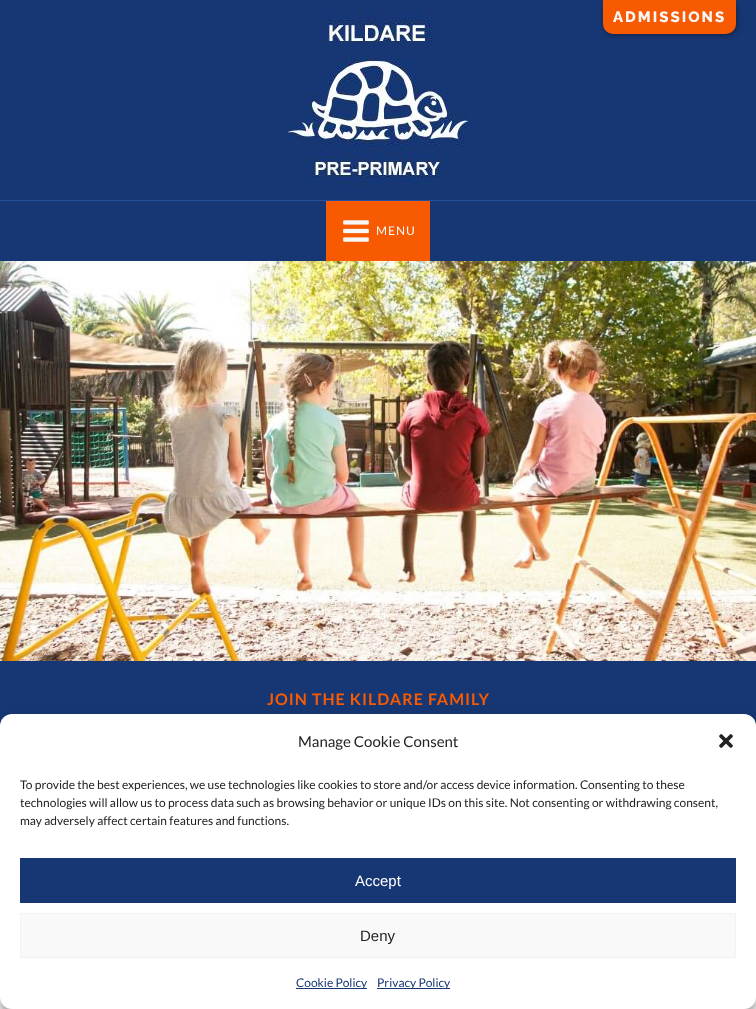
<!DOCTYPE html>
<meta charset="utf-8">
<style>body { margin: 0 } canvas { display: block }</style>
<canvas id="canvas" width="756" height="1009"></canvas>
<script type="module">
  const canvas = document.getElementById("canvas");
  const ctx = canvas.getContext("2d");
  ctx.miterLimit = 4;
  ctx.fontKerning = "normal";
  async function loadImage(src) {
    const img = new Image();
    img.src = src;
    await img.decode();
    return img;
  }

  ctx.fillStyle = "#ffffff";
  ctx.fillRect(0, 0, 756, 1009);
  ctx.fillStyle = "#173774";
  ctx.fillRect(0, 0, 756, 200);
  ctx.drawImage(await loadImage("img1.png"), 288, 10, 180, 177);
  ctx.fillStyle = "rgba(0, 0, 0, 0.31)";
  ctx.filter = "blur(2.5px)";
  ctx.beginPath();
  ctx.roundRect(603, 0, 135, 36, 11);
  ctx.fill();
  ctx.filter = "none";
  ctx.fillStyle = "#f75a00";
  ctx.beginPath();
  ctx.roundRect(603, 0, 133, 34, [0, 0, 10, 10]);
  ctx.fill();
  ctx.letterSpacing = "2px";
  ctx.font = "800 15px Raleway";
  ctx.fillStyle = "#f7f7f7";
  ctx.fillText("ADMISSIONS", 613, 22);
  ctx.fillStyle = "#173774";
  ctx.fillRect(0, 201, 756, 60);
  ctx.fillStyle = "#2450a0";
  ctx.fillRect(0, 200, 756, 1);
  ctx.fillStyle = "#f75a00";
  ctx.fillRect(326, 201, 104, 60);
  ctx.drawImage(await loadImage("img2.png"), 343, 220, 26, 22);
  ctx.letterSpacing = "1px";
  ctx.font = "12px Lato";
  ctx.fillStyle = "#f7f7f7";
  ctx.fillText("MENU", 376, 235);
  ctx.drawImage(await loadImage("img3.png"), 0, 261, 756, 400);
  ctx.fillStyle = "#173774";
  ctx.fillRect(0, 661, 756, 65);
  ctx.font = "bold 16px Lato";
  ctx.fillStyle = "#f75a00";
  ctx.fillText("JOIN THE KILDARE FAMILY", 267, 705);
  ctx.fillStyle = "rgba(0, 0, 0, 0.23)";
  ctx.filter = "blur(3px)";
  ctx.beginPath();
  ctx.roundRect(0, 720, 756, 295, 12);
  ctx.fill();
  ctx.filter = "none";
  ctx.fillStyle = "rgba(0, 0, 0, 0.19)";
  ctx.filter = "blur(10px)";
  ctx.beginPath();
  ctx.roundRect(0, 724, 756, 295, 12);
  ctx.fill();
  ctx.filter = "none";
  ctx.fillStyle = "#808080";
  ctx.filter = "blur(2.5px)";
  ctx.beginPath();
  ctx.roundRect(686, 935, 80, 60, 2);
  ctx.fill();
  ctx.filter = "none";
  ctx.fillStyle = "#ffffff";
  ctx.beginPath();
  ctx.roundRect(0, 714, 756, 295, 12);
  ctx.fill();
  ctx.letterSpacing = "0px";
  ctx.font = "15px Lato";
  ctx.fillStyle = "#222222";
  ctx.fillText("Manage Cookie Consent", 298, 747);
  ctx.drawImage(await loadImage("img4.png"), 719, 734, 14, 14);
  ctx.font = "12px Lato";
  ctx.fillText("To provide the best experiences, we use technologies like cookies to store and/or access device information. Consenting to these", 20, 789);
  ctx.fillText("technologies will allow us to process data such as browsing behavior or unique IDs on this site. Not consenting or withdrawing consent,", 20, 807);
  ctx.fillText("may adversely affect certain features and functions.", 20, 825);
  ctx.fillStyle = "#173774";
  ctx.fillRect(20, 858, 716, 45);
  ctx.font = "15px Liberation Sans";
  ctx.fillStyle = "#ffffff";
  ctx.fillText("Accept", 355, 886);
  ctx.fillStyle = "#f9f9f9";
  ctx.beginPath();
  ctx.rect(20.5, 913.5, 715, 44);
  ctx.fill();
  ctx.strokeStyle = "#f2f2f2";
  ctx.stroke();
  ctx.fillStyle = "#222222";
  ctx.fillText("Deny", 360, 941);
  ctx.fillStyle = "#173774";
  ctx.fillRect(296, 988, 71, 1);
  ctx.font = "12px Lato";
  ctx.fillText("Cookie Policy", 296, 987);
  ctx.fillRect(377, 988, 73, 1);
  ctx.fillText("Privacy Policy", 377, 987);
</script>
